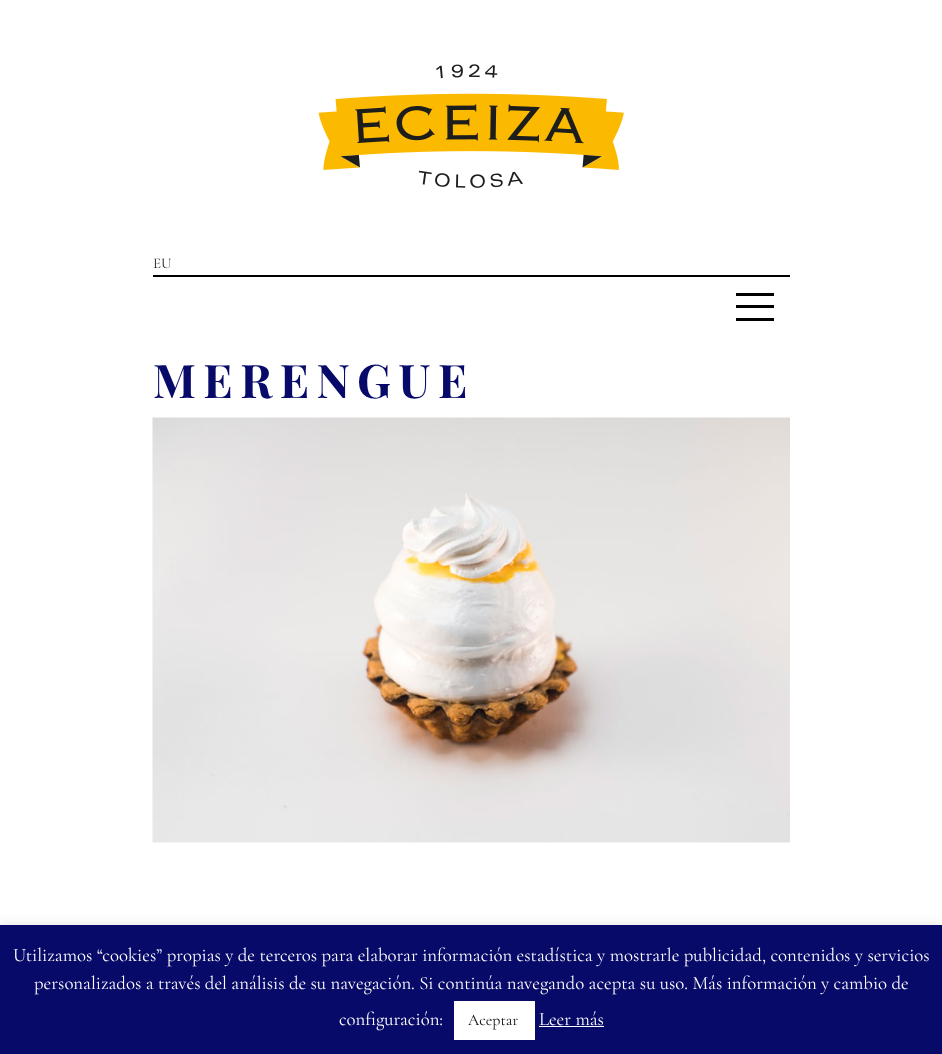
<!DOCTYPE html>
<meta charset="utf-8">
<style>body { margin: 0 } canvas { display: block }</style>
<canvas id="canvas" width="942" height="1054"></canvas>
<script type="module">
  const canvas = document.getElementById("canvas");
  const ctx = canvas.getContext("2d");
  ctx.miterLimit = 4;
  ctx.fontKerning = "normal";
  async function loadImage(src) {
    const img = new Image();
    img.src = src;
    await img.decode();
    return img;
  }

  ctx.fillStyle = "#ffffff";
  ctx.fillRect(0, 0, 942, 1054);
  ctx.drawImage(await loadImage("img1.png"), 318, 64, 306, 124);
  ctx.font = "300 15px Cormorant Garamond";
  ctx.fillStyle = "#232323";
  ctx.fillText("EU", 153, 268);
  ctx.fillStyle = "#000000";
  ctx.fillRect(153, 275, 637, 2);
  ctx.fillRect(736, 293, 38, 3);
  ctx.fillRect(736, 305, 38, 3);
  ctx.fillRect(736, 318, 38, 3);
  ctx.letterSpacing = "7.5px";
  ctx.font = "bold 46.25px Playfair Display";
  ctx.fillStyle = "#080a69";
  ctx.fillText("MERENGUE", 153, 398);
  ctx.drawImage(await loadImage("img2.png"), 152, 417, 638, 426);
  ctx.fillStyle = "rgba(172, 171, 171, 0.3)";
  ctx.filter = "blur(6px)";
  ctx.beginPath();
  ctx.rect(0, 924, 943, 130);
  ctx.fill();
  ctx.filter = "none";
  ctx.fillStyle = "#080a69";
  ctx.fillRect(0, 925, 942, 129);
  ctx.letterSpacing = "0px";
  ctx.font = "300 18.75px Cormorant Garamond";
  ctx.fillStyle = "#ffffff";
  ctx.fillText("Utilizamos “cookies” propias y de terceros para elaborar información estadística y mostrarle publicidad, contenidos y servicios", 13, 961);
  ctx.fillText("personalizados a través del análisis de su navegación. Si continúa navegando acepta su uso. Más información y cambio de", 34, 989);
  ctx.fillText("configuración:", 339, 1025);
  ctx.fillRect(454, 1001, 81, 39);
  ctx.font = "300 16px Cormorant Garamond";
  ctx.fillStyle = "#0c0c0c";
  ctx.fillText("Aceptar", 468, 1025);
  ctx.font = "300 18.75px Cormorant Garamond";
  ctx.fillStyle = "#ffffff";
  ctx.fillText("Leer más", 539, 1025);
  ctx.fillRect(539, 1026, 65, 1);
</script>
